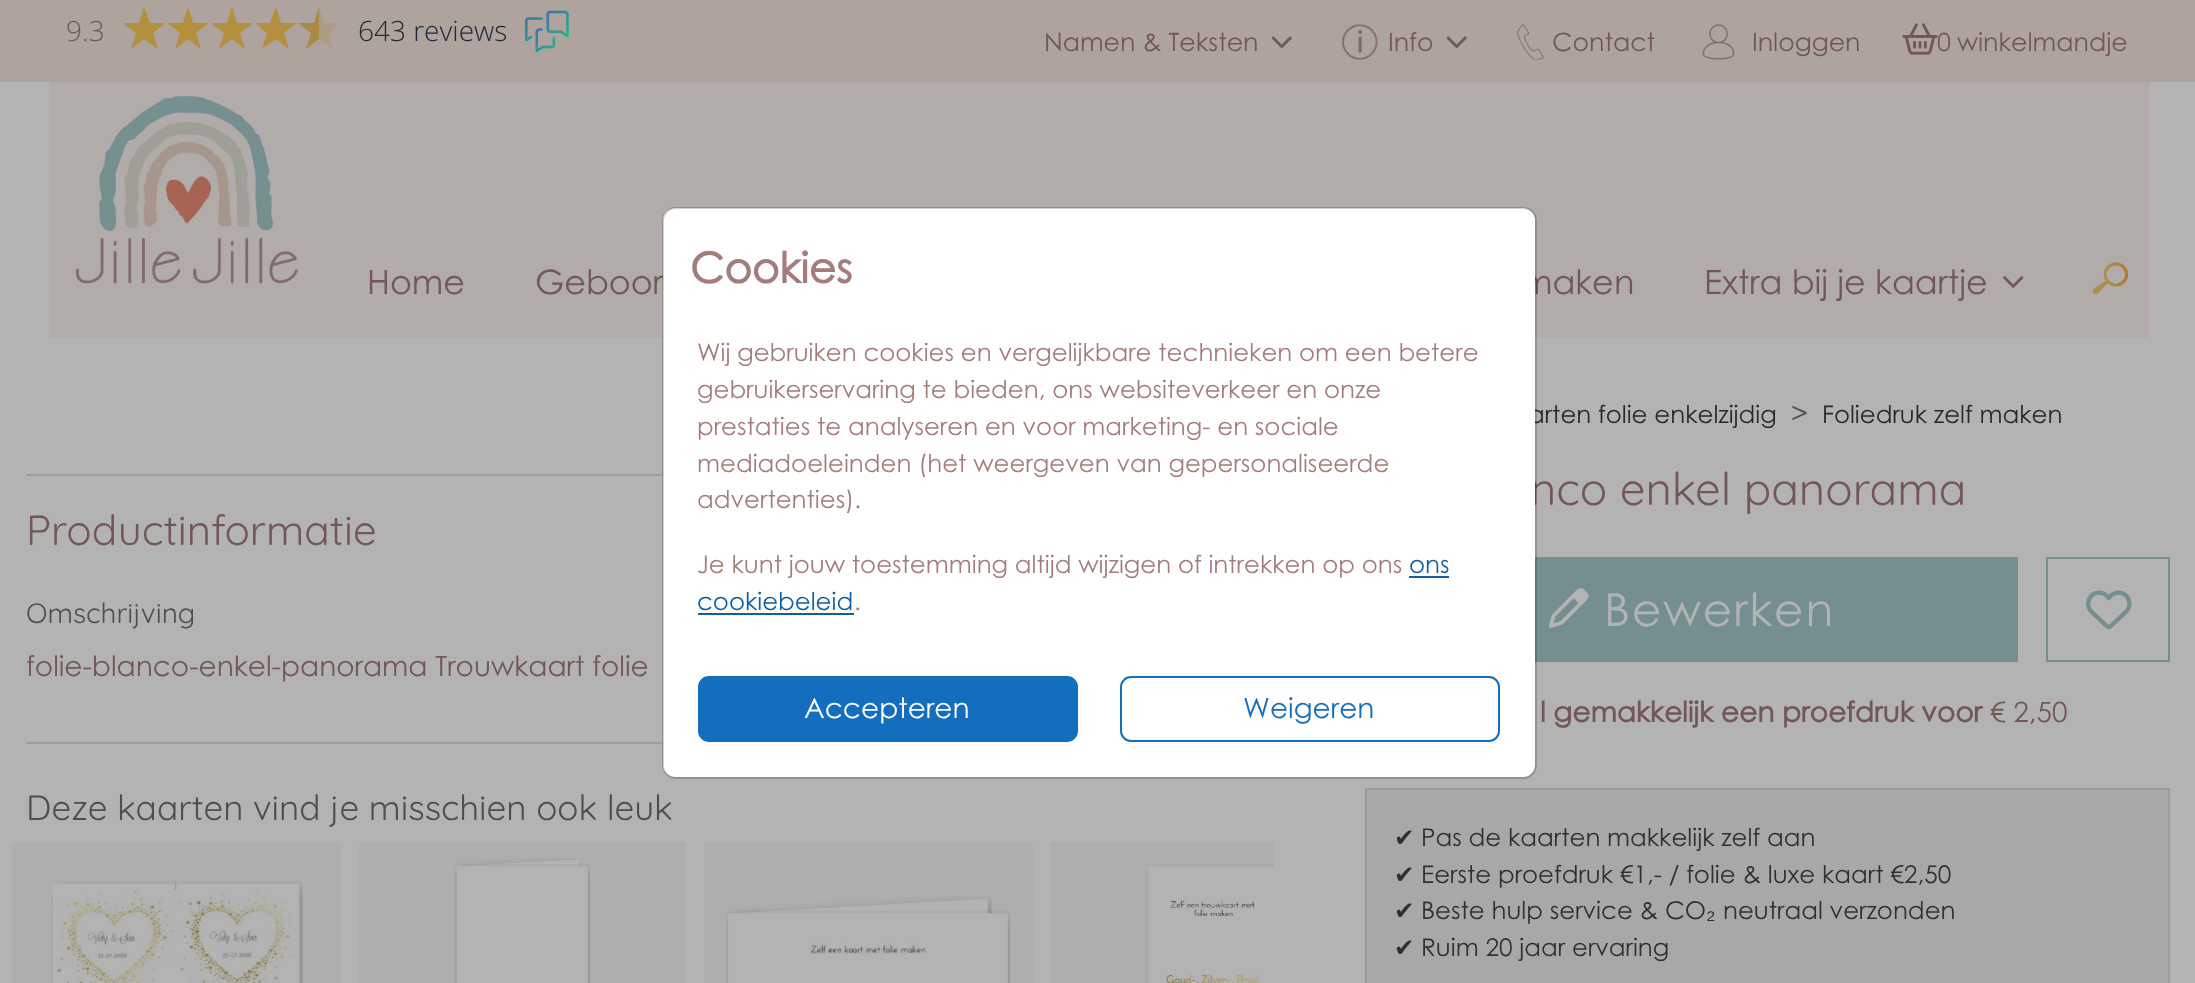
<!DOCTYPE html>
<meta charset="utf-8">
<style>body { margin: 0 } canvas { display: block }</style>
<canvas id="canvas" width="2195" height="983"></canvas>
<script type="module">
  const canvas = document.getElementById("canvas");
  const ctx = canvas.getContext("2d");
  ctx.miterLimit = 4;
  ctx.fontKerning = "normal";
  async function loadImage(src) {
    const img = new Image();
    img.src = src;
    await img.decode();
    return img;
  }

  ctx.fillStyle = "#b3b3b3";
  ctx.fillRect(0, 0, 2195, 983);
  ctx.fillStyle = "#aea39d";
  ctx.fillRect(0, 0, 2195, 82);
  ctx.font = "300 28px Open Sans";
  ctx.fillStyle = "#725756";
  ctx.fillText("9.3", 66, 41);
  ctx.fillStyle = "#b2903e";
  ctx.beginPath();
  ctx.moveTo(158, 49);
  ctx.lineTo(153, 33);
  ctx.lineTo(165, 23);
  ctx.lineTo(150, 23);
  ctx.lineTo(144, 7);
  ctx.lineTo(139, 23);
  ctx.lineTo(123, 23);
  ctx.lineTo(136, 33);
  ctx.lineTo(131, 49);
  ctx.lineTo(144, 39);
  ctx.closePath();
  ctx.fill();
  ctx.beginPath();
  ctx.moveTo(201, 49);
  ctx.lineTo(196, 33);
  ctx.lineTo(209, 23);
  ctx.lineTo(193, 23);
  ctx.lineTo(188, 7);
  ctx.lineTo(183, 23);
  ctx.lineTo(167, 23);
  ctx.lineTo(180, 33);
  ctx.lineTo(175, 49);
  ctx.lineTo(188, 39);
  ctx.closePath();
  ctx.fill();
  ctx.beginPath();
  ctx.moveTo(245, 49);
  ctx.lineTo(240, 33);
  ctx.lineTo(253, 23);
  ctx.lineTo(237, 23);
  ctx.lineTo(232, 7);
  ctx.lineTo(227, 23);
  ctx.lineTo(211, 23);
  ctx.lineTo(224, 33);
  ctx.lineTo(219, 49);
  ctx.lineTo(232, 39);
  ctx.closePath();
  ctx.fill();
  ctx.beginPath();
  ctx.moveTo(289, 49);
  ctx.lineTo(284, 33);
  ctx.lineTo(297, 23);
  ctx.lineTo(281, 23);
  ctx.lineTo(276, 7);
  ctx.lineTo(270, 23);
  ctx.lineTo(255, 23);
  ctx.lineTo(267, 33);
  ctx.lineTo(262, 49);
  ctx.lineTo(276, 39);
  ctx.closePath();
  ctx.fill();
  ctx.fillStyle = "#a98b44";
  ctx.beginPath();
  ctx.moveTo(319, 7);
  ctx.lineTo(314, 23);
  ctx.lineTo(298, 23);
  ctx.lineTo(311, 33);
  ctx.lineTo(306, 49);
  ctx.lineTo(319, 39);
  ctx.closePath();
  ctx.fill();
  ctx.fillStyle = "#ac9c82";
  ctx.beginPath();
  ctx.moveTo(319, 7);
  ctx.lineTo(324, 23);
  ctx.lineTo(340, 23);
  ctx.lineTo(328, 33);
  ctx.lineTo(333, 49);
  ctx.lineTo(319, 39);
  ctx.closePath();
  ctx.fill();
  ctx.fillStyle = "#222a38";
  ctx.fillText("643 reviews", 358, 41);
  ctx.drawImage(await loadImage("img1.png"), 525, 10, 44, 43);
  ctx.font = "25.25px Century Gothic";
  ctx.fillStyle = "#725756";
  ctx.fillText("Namen & Teksten", 1044, 51);
  ctx.drawImage(await loadImage("img2.png"), 1271, 36, 21, 13);
  ctx.drawImage(await loadImage("img3.png"), 1342, 24, 36, 36);
  ctx.fillText("Info", 1388, 51);
  ctx.drawImage(await loadImage("img2.png"), 1446, 36, 21, 13);
  ctx.drawImage(await loadImage("img4.png"), 1517, 24, 27, 36);
  ctx.fillText("Contact", 1552, 51);
  ctx.drawImage(await loadImage("img5.png"), 1702, 24, 33, 36);
  ctx.fillText("Inloggen", 1752, 51);
  ctx.drawImage(await loadImage("img6.png"), 1902, 23, 36, 32);
  ctx.fillText("0", 1937, 51);
  ctx.fillText("winkelmandje", 1957, 51);
  ctx.fillStyle = "#b1aba9";
  ctx.fillRect(49, 82, 2100, 256);
  ctx.drawImage(await loadImage("img7.png"), 75, 96, 223, 188);
  ctx.font = "33.5px Century Gothic";
  ctx.fillStyle = "#725756";
  ctx.fillText("Home", 367, 294);
  ctx.fillText("Geboor", 535, 294);
  ctx.fillText("maken", 1521, 294);
  ctx.fillText("Extra bij je kaartje", 1704, 294);
  ctx.drawImage(await loadImage("img8.png"), 2003, 276, 21, 12);
  ctx.drawImage(await loadImage("img9.png"), 2093, 262, 35, 32);
  ctx.font = "24.5px Century Gothic";
  ctx.fillStyle = "#24292d";
  ctx.fillText("arten folie enkelzijdig", 1528, 423);
  ctx.font = "45.5px Quicksand";
  ctx.fillStyle = "#725756";
  ctx.fillText("nco enkel panorama", 1530, 505);
  ctx.fillStyle = "#ffffff";
  ctx.beginPath();
  ctx.roundRect(663, 208, 872, 569, 12);
  ctx.fill();
  ctx.fillStyle = "#9b9ea1";
  ctx.fillRect(26, 474, 637, 2);
  ctx.fillRect(26, 742, 637, 2);
  ctx.fillStyle = "#758f90";
  ctx.fillRect(1535, 557, 483, 105);
  ctx.beginPath();
  ctx.roundRect(663, 208, 873, 570, 13);
  ctx.strokeStyle = "rgba(0, 0, 0, 0.18)";
  ctx.lineWidth = 2;
  ctx.stroke();
  ctx.font = "bold 42px Century Gothic";
  ctx.fillStyle = "#a37c7b";
  ctx.fillText("Cookies", 690, 283);
  ctx.font = "24.5px Century Gothic";
  ctx.fillText("Wij gebruiken cookies en vergelijkbare technieken om een betere", 697, 361);
  ctx.fillText("gebruikerservaring te bieden, ons websiteverkeer en onze", 697, 398);
  ctx.fillText("prestaties te analyseren en voor marketing- en sociale", 697, 435);
  ctx.fillText("mediadoeleinden (het weergeven van gepersonaliseerde", 697, 472);
  ctx.fillText("advertenties).", 697, 508);
  ctx.fillText("Je kunt jouw toestemming altijd wijzigen of intrekken op ons", 697, 573);
  ctx.fillStyle = "#115ea2";
  ctx.fillText("ons", 1409, 573);
  ctx.fillRect(1409, 576, 40, 2);
  ctx.fillText("cookiebeleid", 697, 610);
  ctx.fillRect(698, 613, 156, 2);
  ctx.fillStyle = "#a37c7b";
  ctx.fillText(".", 854, 610);
  ctx.fillStyle = "#146ebe";
  ctx.beginPath();
  ctx.roundRect(699, 677, 378, 64, 10);
  ctx.fill();
  ctx.strokeStyle = "#146ebe";
  ctx.stroke();
  ctx.font = "28px Century Gothic";
  ctx.fillStyle = "#ffffff";
  ctx.fillText("Accepteren", 804, 718);
  ctx.beginPath();
  ctx.roundRect(1121, 677, 378, 64, 10);
  ctx.stroke();
  ctx.fillStyle = "#146ebe";
  ctx.fillText("Weigeren", 1243, 718);
  ctx.font = "42px Quicksand";
  ctx.fillStyle = "#725756";
  ctx.fillText("Productinformatie", 26, 545);
  ctx.font = "28px Quicksand";
  ctx.fillStyle = "#4e4e4d";
  ctx.fillText("Omschrijving", 26, 623);
  ctx.font = "28px Century Gothic";
  ctx.fillStyle = "#725756";
  ctx.fillText("folie-blanco-enkel-panorama Trouwkaart folie", 26, 676);
  ctx.font = "35px Quicksand";
  ctx.fillStyle = "#4e4e4d";
  ctx.fillText("Deze kaarten vind je misschien ook leuk", 26, 820);
  ctx.fillStyle = "#aeaeaf";
  ctx.fillRect(12, 842, 329, 9);
  ctx.beginPath();
  ctx.roundRect(12, 842, 329, 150, 9);
  ctx.fill();
  ctx.drawImage(await loadImage("img10.png"), 51, 881, 252, 102);
  ctx.fillRect(359, 842, 327, 9);
  ctx.beginPath();
  ctx.roundRect(359, 842, 327, 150, 9);
  ctx.fill();
  ctx.drawImage(await loadImage("img11.png"), 455, 858, 126, 125);
  ctx.drawImage(await loadImage("img12.png"), 454, 864, 136, 119);
  ctx.fillRect(704, 842, 329, 9);
  ctx.beginPath();
  ctx.roundRect(704, 842, 329, 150, 9);
  ctx.fill();
  ctx.drawImage(await loadImage("img13.png"), 726, 896, 266, 87);
  ctx.drawImage(await loadImage("img14.png"), 726, 910, 284, 73);
  ctx.fillRect(1050, 842, 9, 9);
  ctx.beginPath();
  ctx.moveTo(1059, 842);
  ctx.lineTo(1274, 842);
  ctx.lineTo(1274, 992);
  ctx.lineTo(1059, 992);
  ctx.bezierCurveTo(1054, 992, 1050, 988, 1050, 983);
  ctx.lineTo(1050, 851);
  ctx.bezierCurveTo(1050, 846, 1054, 842, 1059, 842);
  ctx.closePath();
  ctx.fill();
  ctx.drawImage(await loadImage("img15.png"), 1146, 864, 128, 119);
  ctx.font = "28px Century Gothic";
  ctx.fillStyle = "#4c5258";
  ctx.fillText(">", 1791, 423);
  ctx.font = "24.5px Century Gothic";
  ctx.fillStyle = "#24292d";
  ctx.fillText("Foliedruk zelf maken", 1822, 423);
  ctx.drawImage(await loadImage("img16.png"), 1548, 588, 41, 40);
  ctx.letterSpacing = "1.75px";
  ctx.font = "45.5px Century Gothic";
  ctx.fillStyle = "#b3b3b3";
  ctx.fillText("Bewerken", 1604, 626);
  ctx.strokeStyle = "#758f90";
  ctx.strokeRect(2047, 558, 122, 103);
  ctx.drawImage(await loadImage("img17.png"), 2086, 590, 46, 40);
  ctx.letterSpacing = "0px";
  ctx.font = "bold 28px Century Gothic";
  ctx.fillStyle = "#725756";
  ctx.fillText("l gemakkelijk een proefdruk voor", 1540, 722);
  ctx.font = "28px Century Gothic";
  ctx.fillText("€ 2,50", 1990, 722);
  ctx.fillStyle = "#a8a8a8";
  ctx.beginPath();
  ctx.rect(1366, 789, 803, 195);
  ctx.fill();
  ctx.strokeStyle = "#9b9b9b";
  ctx.stroke();
  ctx.font = "24.5px DejaVu Sans";
  ctx.fillStyle = "#303030";
  ctx.fillText("✔", 1394, 846);
  ctx.font = "24.5px Century Gothic";
  ctx.fillText("Pas de kaarten makkelijk zelf aan", 1421, 846);
  ctx.font = "24.5px DejaVu Sans";
  ctx.fillText("✔", 1394, 883);
  ctx.font = "24.5px Century Gothic";
  ctx.fillText("Eerste proefdruk €1,- / folie & luxe kaart €2,50", 1421, 883);
  ctx.font = "24.5px DejaVu Sans";
  ctx.fillText("✔", 1394, 919);
  ctx.font = "24.5px Century Gothic";
  ctx.fillText("Beste hulp service & CO", 1421, 919);
  ctx.font = "24.5px Liberation Sans";
  ctx.fillText("₂", 1706, 919);
  ctx.font = "24.5px Century Gothic";
  ctx.fillText("neutraal verzonden", 1723, 919);
  ctx.font = "24.5px DejaVu Sans";
  ctx.fillText("✔", 1394, 956);
  ctx.font = "24.5px Century Gothic";
  ctx.fillText("Ruim 20 jaar ervaring", 1421, 956);
</script>
